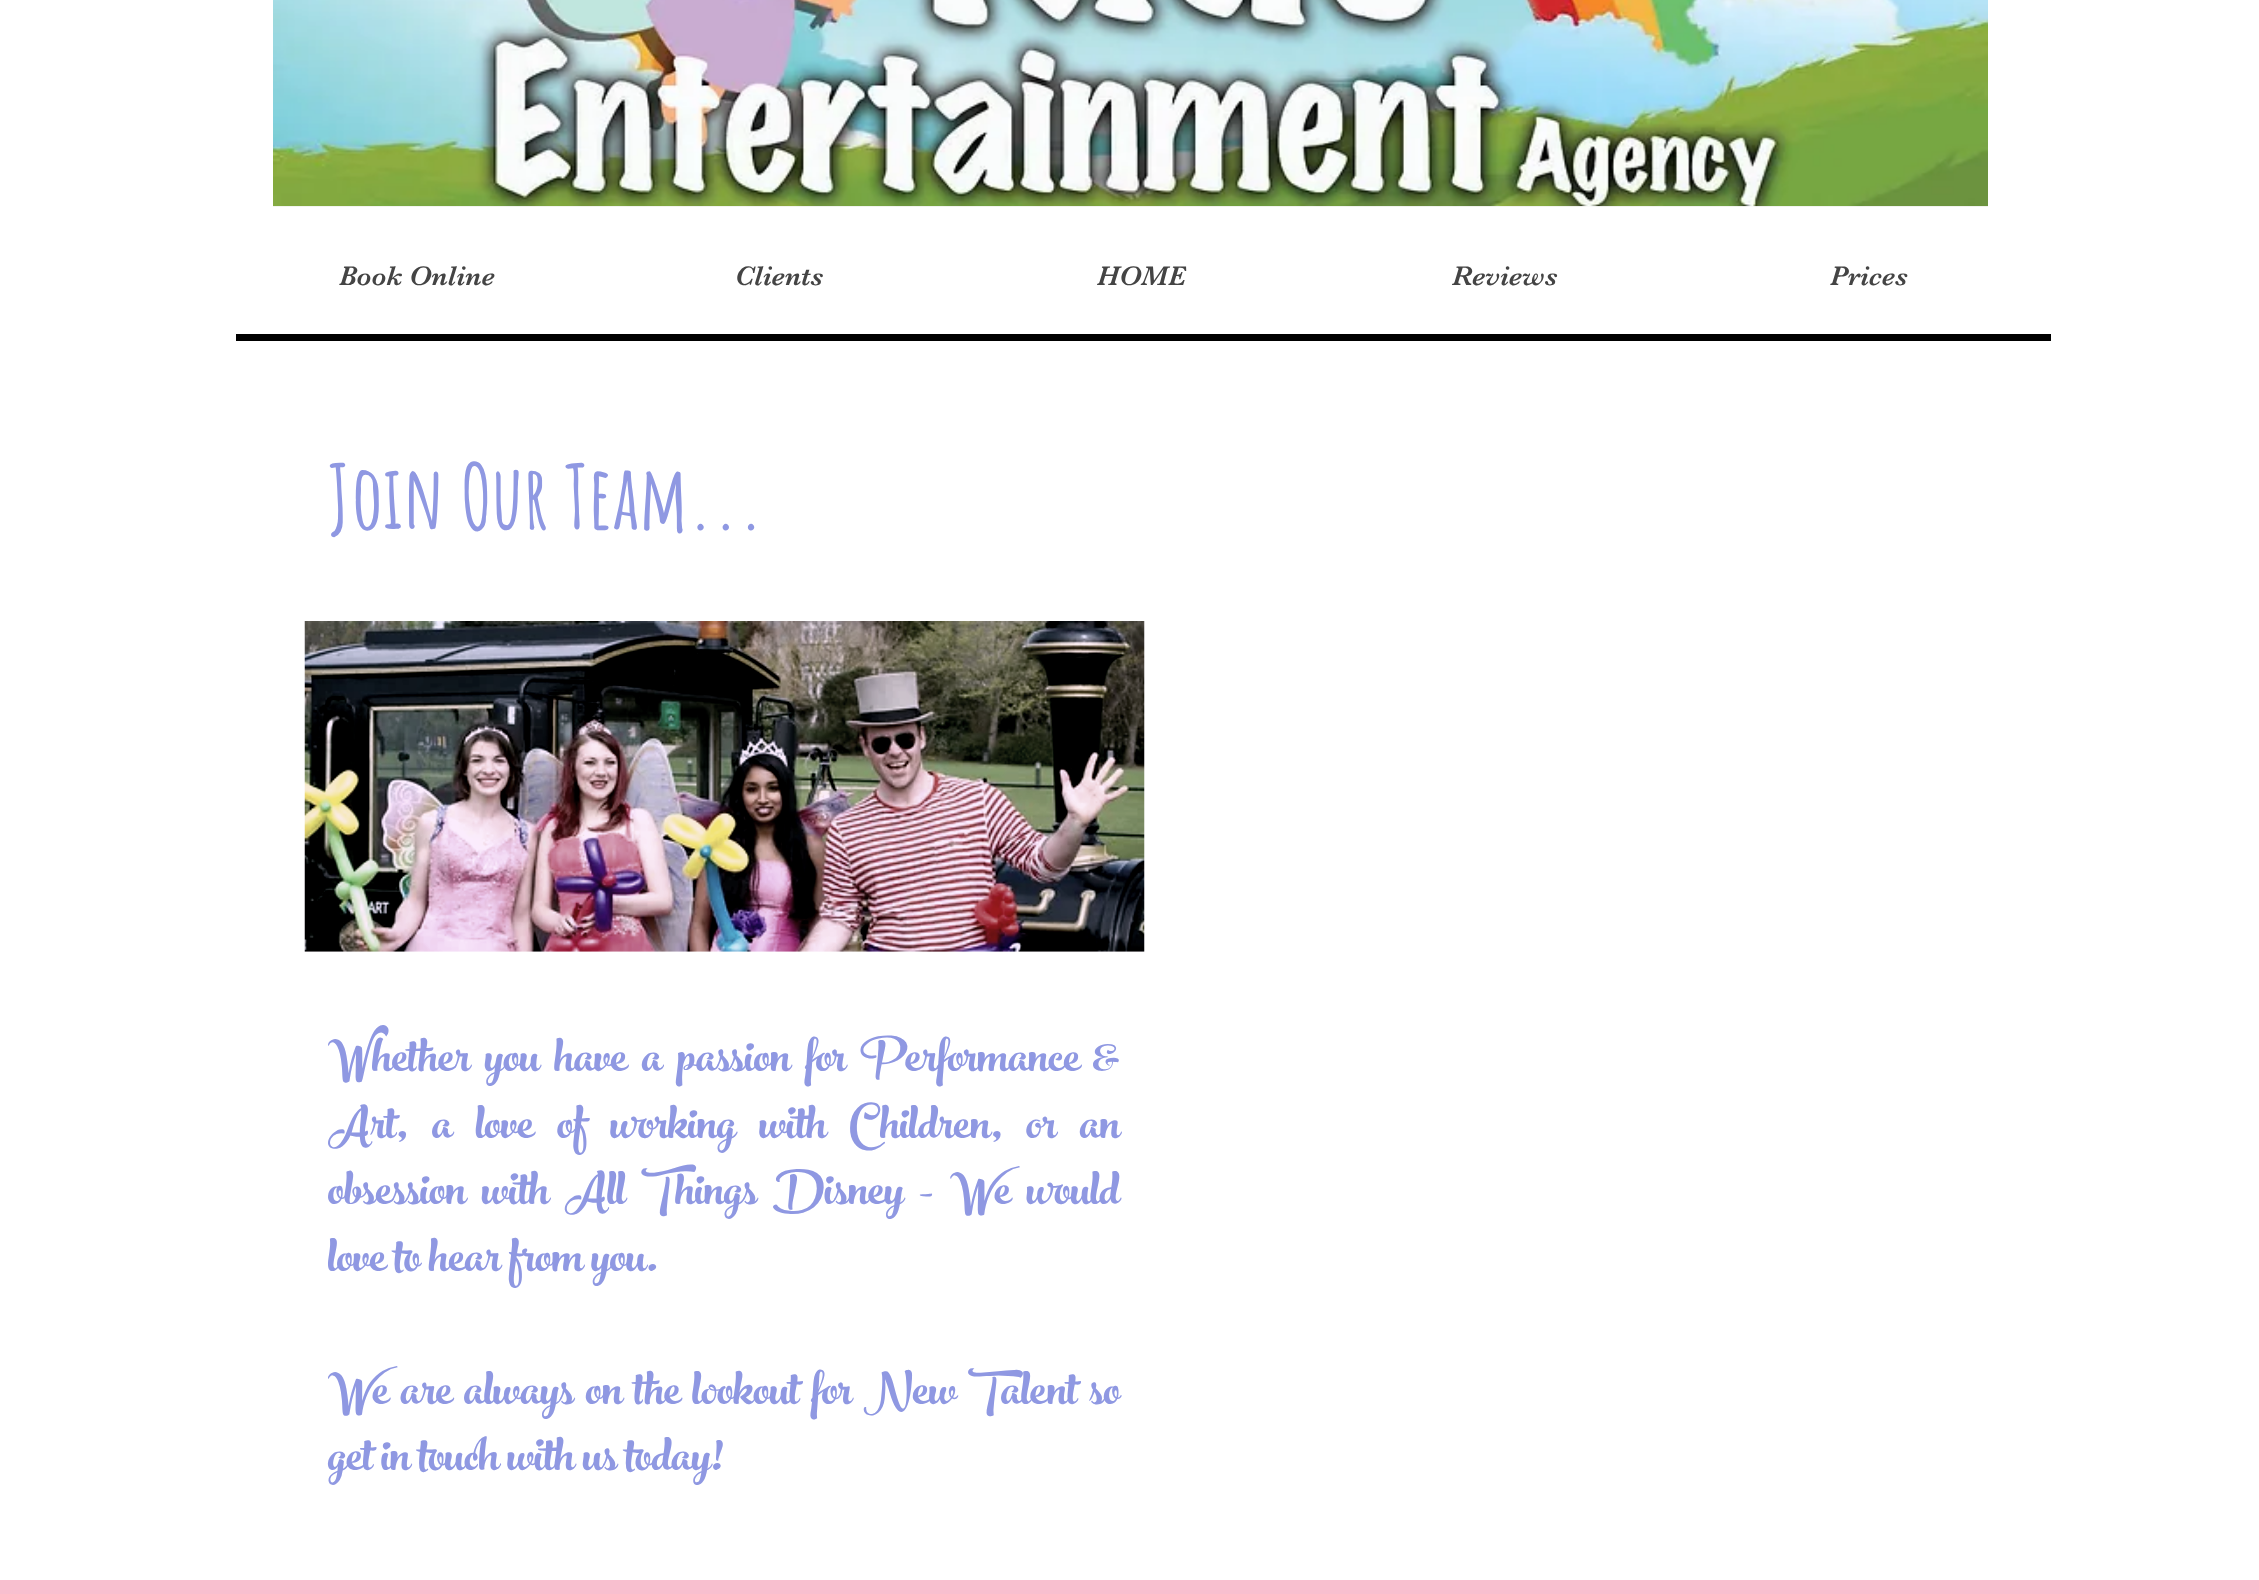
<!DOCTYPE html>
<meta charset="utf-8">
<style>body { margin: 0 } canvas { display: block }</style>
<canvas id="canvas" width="2259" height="1594"></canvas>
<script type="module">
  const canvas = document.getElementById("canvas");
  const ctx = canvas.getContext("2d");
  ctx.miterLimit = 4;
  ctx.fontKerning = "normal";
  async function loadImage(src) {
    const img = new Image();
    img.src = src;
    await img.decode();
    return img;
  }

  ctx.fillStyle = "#ffffff";
  ctx.fillRect(0, 0, 2259, 1594);
  ctx.fillStyle = "#fafafa";
  ctx.fillRect(273, 206, 1715, 1);
  ctx.drawImage(await loadImage("img1.png"), 273, 0, 1715, 207);
  ctx.fillStyle = "#000000";
  ctx.beginPath();
  ctx.moveTo(236, 226);
  ctx.lineTo(236, 341);
  ctx.lineTo(2051, 341);
  ctx.lineTo(2051, 334);
  ctx.lineTo(236, 334);
  ctx.closePath();
  ctx.fill();
  ctx.font = "28px 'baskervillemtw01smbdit'";
  ctx.fillStyle = "#444444";
  ctx.fillText("Book Online", 339, 285);
  ctx.fillText("Clients", 735, 285);
  ctx.fillText("HOME", 1097, 285);
  ctx.fillText("Reviews", 1452, 285);
  ctx.fillText("Prices", 1830, 285);
  ctx.font = "bold 87.5px Amatic SC";
  ctx.fillStyle = "#8f98e2";
  ctx.fillText("Join Our Team...", 328, 529);
  ctx.wordSpacing = "6.5px";
  ctx.font = "70px 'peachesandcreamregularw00'";
  ctx.fillText("Whether you have a passion for Performance &", 328, 1071);
  ctx.wordSpacing = "15.25px";
  ctx.fillText("Art, a love of working with Children, or an", 328, 1138);
  ctx.wordSpacing = "7.5px";
  ctx.fillText("obsession with All Things Disney - We would", 328, 1204);
  ctx.wordSpacing = "0px";
  ctx.fillText("love to hear from you.", 328, 1271);
  ctx.wordSpacing = "3.5px";
  ctx.fillText("We are always on the lookout for New Talent so", 328, 1404);
  ctx.wordSpacing = "0px";
  ctx.fillText("get in touch with us today!", 328, 1470);
  ctx.drawImage(await loadImage("img2.png"), 304, 621, 841, 331);
  ctx.fillStyle = "#f8bfcf";
  ctx.fillRect(0, 1580, 2259, 14);
</script>
